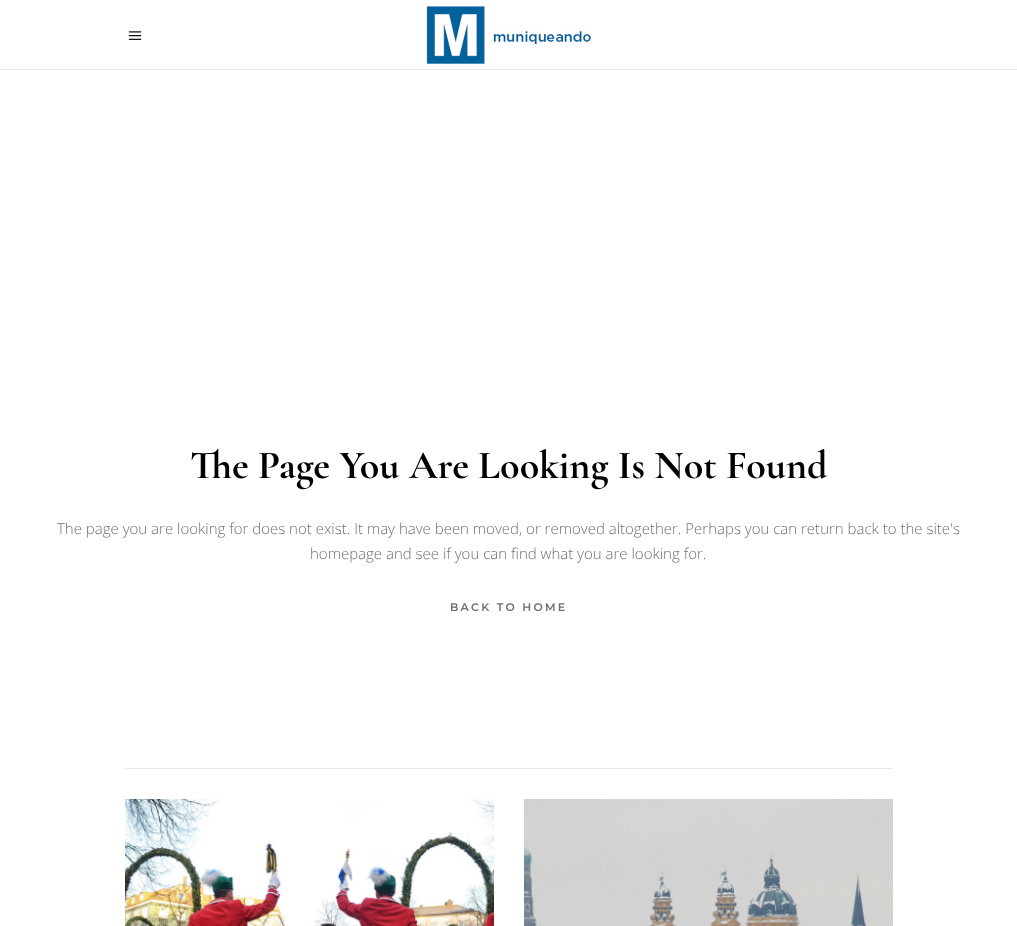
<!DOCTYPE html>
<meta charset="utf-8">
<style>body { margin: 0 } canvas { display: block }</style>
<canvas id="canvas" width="1017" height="926"></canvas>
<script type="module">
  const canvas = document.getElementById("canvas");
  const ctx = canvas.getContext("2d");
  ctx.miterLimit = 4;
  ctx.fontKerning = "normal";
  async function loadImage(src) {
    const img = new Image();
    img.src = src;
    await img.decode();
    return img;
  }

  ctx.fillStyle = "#ffffff";
  ctx.fillRect(0, 0, 1017, 926);
  ctx.fillStyle = "#ebebeb";
  ctx.fillRect(0, 69, 1017, 1);
  ctx.drawImage(await loadImage("img1.png"), 128, 31, 14, 9);
  ctx.drawImage(await loadImage("img2.png"), 426, 6, 165, 58);
  ctx.font = "bold 40px Cormorant Garamond";
  ctx.fillStyle = "#000000";
  ctx.fillText("The Page You Are Looking Is Not Found", 190, 478);
  ctx.font = "300 15px Open Sans";
  ctx.fillStyle = "#707070";
  ctx.fillText("The page you are looking for does not exist. It may have been moved, or removed altogether. Perhaps you can return back to the site's", 57, 534);
  ctx.fillText("homepage and see if you can find what you are looking for.", 310, 559);
  ctx.letterSpacing = "2.25px";
  ctx.font = "600 11px Montserrat";
  ctx.fillText("BACK TO HOME", 450, 611);
  ctx.fillStyle = "#e7e7e7";
  ctx.fillRect(125, 768, 768, 1);
  ctx.drawImage(await loadImage("img3.png"), 125, 799, 369, 127);
  ctx.drawImage(await loadImage("img4.png"), 524, 799, 369, 127);
</script>
